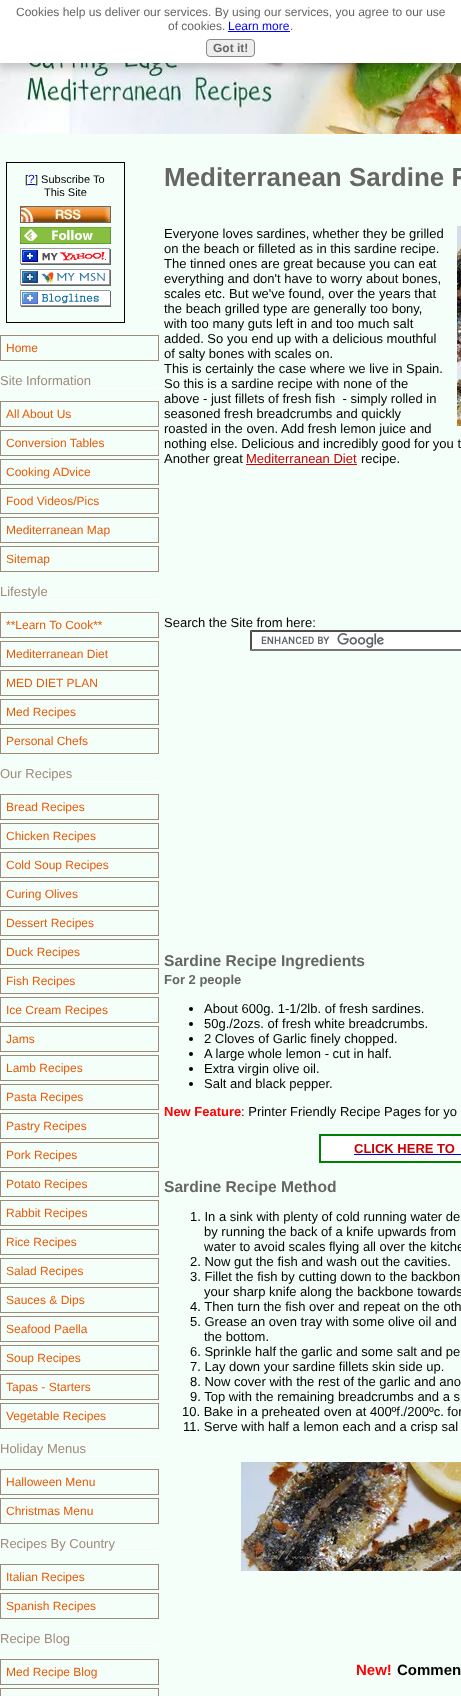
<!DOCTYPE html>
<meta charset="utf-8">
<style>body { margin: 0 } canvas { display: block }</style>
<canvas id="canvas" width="461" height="1696"></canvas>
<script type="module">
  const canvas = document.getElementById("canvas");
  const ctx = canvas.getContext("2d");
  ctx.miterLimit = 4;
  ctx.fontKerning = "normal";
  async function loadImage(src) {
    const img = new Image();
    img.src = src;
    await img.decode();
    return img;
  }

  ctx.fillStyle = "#f5fffa";
  ctx.fillRect(0, 0, 461, 1696);
  ctx.drawImage(await loadImage("img1.png"), 0, 63, 461, 71);
  ctx.fillStyle = "rgba(0, 0, 0, 0.2)";
  ctx.filter = "blur(5px)";
  ctx.beginPath();
  ctx.rect(-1, 3, 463, 65);
  ctx.fill();
  ctx.filter = "none";
  ctx.fillStyle = "#ffffff";
  ctx.fillRect(0, 0, 461, 63);
  ctx.font = "12px Liberation Sans";
  ctx.fillStyle = "#666666";
  ctx.fillText("Cookies help us deliver our services. By using our services, you agree to our use", 16, 16);
  ctx.fillText("of cookies.", 168, 30);
  ctx.fillStyle = "#0000ff";
  ctx.fillText("Learn more", 228, 30);
  ctx.fillRect(228, 31, 62, 1);
  ctx.fillStyle = "#666666";
  ctx.fillText(".", 290, 30);
  ctx.fillStyle = "#eeeeee";
  ctx.beginPath();
  ctx.roundRect(206.5, 39.5, 48, 17, 3.5);
  ctx.fill();
  ctx.strokeStyle = "#888888";
  ctx.stroke();
  ctx.font = "bold 12px Liberation Sans";
  ctx.fillStyle = "#666666";
  ctx.fillText("Got it!", 213, 52);
  ctx.strokeStyle = "#000000";
  ctx.strokeRect(6.5, 162.5, 118, 160);
  ctx.font = "11px Liberation Sans";
  ctx.fillStyle = "#000000";
  ctx.fillText("[", 25, 183);
  ctx.font = "12px Liberation Sans";
  ctx.fillStyle = "#0000ee";
  ctx.fillText("?", 28, 183);
  ctx.fillRect(28, 184, 7, 1);
  ctx.font = "11px Liberation Sans";
  ctx.fillStyle = "#000000";
  ctx.fillText("] Subscribe To", 35, 183);
  ctx.fillText("This Site", 44, 196);
  ctx.drawImage(await loadImage("img2.png"), 20, 206, 91, 17);
  ctx.drawImage(await loadImage("img3.png"), 20, 227, 91, 17);
  ctx.drawImage(await loadImage("img4.png"), 20, 248, 91, 17);
  ctx.drawImage(await loadImage("img5.png"), 20, 269, 91, 17);
  ctx.drawImage(await loadImage("img6.png"), 20, 290, 91, 17);
  ctx.strokeStyle = "#9e8a7a";
  ctx.strokeRect(0.5, 335.5, 158, 25);
  ctx.font = "12px Liberation Sans";
  ctx.fillStyle = "#e75a08";
  ctx.fillText("Home", 6, 352);
  ctx.fillStyle = "#ffffff";
  ctx.fillRect(0, 388, 159, 1);
  ctx.font = "13px Liberation Sans";
  ctx.fillStyle = "#9e8a7a";
  ctx.fillText("Site Information", 0, 385);
  ctx.strokeRect(0.5, 401.5, 158, 25);
  ctx.font = "12px Liberation Sans";
  ctx.fillStyle = "#e75a08";
  ctx.fillText("All About Us", 6, 418);
  ctx.strokeRect(0.5, 430.5, 158, 25);
  ctx.fillText("Conversion Tables", 6, 447);
  ctx.strokeRect(0.5, 459.5, 158, 25);
  ctx.fillText("Cooking ADvice", 6, 476);
  ctx.strokeRect(0.5, 488.5, 158, 25);
  ctx.fillText("Food Videos/Pics", 6, 505);
  ctx.strokeRect(0.5, 517.5, 158, 25);
  ctx.fillText("Mediterranean Map", 6, 534);
  ctx.strokeRect(0.5, 546.5, 158, 25);
  ctx.fillText("Sitemap", 6, 563);
  ctx.fillStyle = "#ffffff";
  ctx.fillRect(0, 599, 159, 1);
  ctx.font = "13px Liberation Sans";
  ctx.fillStyle = "#9e8a7a";
  ctx.fillText("Lifestyle", 0, 596);
  ctx.strokeRect(0.5, 612.5, 158, 25);
  ctx.font = "12px Liberation Sans";
  ctx.fillStyle = "#e75a08";
  ctx.fillText("**Learn To Cook**", 6, 629);
  ctx.strokeRect(0.5, 641.5, 158, 25);
  ctx.fillText("Mediterranean Diet", 6, 658);
  ctx.strokeRect(0.5, 670.5, 158, 25);
  ctx.fillText("MED DIET PLAN", 6, 687);
  ctx.strokeRect(0.5, 699.5, 158, 25);
  ctx.fillText("Med Recipes", 6, 716);
  ctx.strokeRect(0.5, 728.5, 158, 25);
  ctx.fillText("Personal Chefs", 6, 745);
  ctx.fillStyle = "#ffffff";
  ctx.fillRect(0, 781, 159, 1);
  ctx.font = "13px Liberation Sans";
  ctx.fillStyle = "#9e8a7a";
  ctx.fillText("Our Recipes", 0, 778);
  ctx.strokeRect(0.5, 794.5, 158, 25);
  ctx.font = "12px Liberation Sans";
  ctx.fillStyle = "#e75a08";
  ctx.fillText("Bread Recipes", 6, 811);
  ctx.strokeRect(0.5, 823.5, 158, 25);
  ctx.fillText("Chicken Recipes", 6, 840);
  ctx.strokeRect(0.5, 852.5, 158, 25);
  ctx.fillText("Cold Soup Recipes", 6, 869);
  ctx.strokeRect(0.5, 881.5, 158, 25);
  ctx.fillText("Curing Olives", 6, 898);
  ctx.strokeRect(0.5, 910.5, 158, 25);
  ctx.fillText("Dessert Recipes", 6, 927);
  ctx.strokeRect(0.5, 939.5, 158, 25);
  ctx.fillText("Duck Recipes", 6, 956);
  ctx.strokeRect(0.5, 968.5, 158, 25);
  ctx.fillText("Fish Recipes", 6, 985);
  ctx.strokeRect(0.5, 997.5, 158, 25);
  ctx.fillText("Ice Cream Recipes", 6, 1014);
  ctx.strokeRect(0.5, 1026.5, 158, 25);
  ctx.fillText("Jams", 6, 1043);
  ctx.strokeRect(0.5, 1055.5, 158, 25);
  ctx.fillText("Lamb Recipes", 6, 1072);
  ctx.strokeRect(0.5, 1084.5, 158, 25);
  ctx.fillText("Pasta Recipes", 6, 1101);
  ctx.strokeRect(0.5, 1113.5, 158, 25);
  ctx.fillText("Pastry Recipes", 6, 1130);
  ctx.strokeRect(0.5, 1142.5, 158, 25);
  ctx.fillText("Pork Recipes", 6, 1159);
  ctx.strokeRect(0.5, 1171.5, 158, 25);
  ctx.fillText("Potato Recipes", 6, 1188);
  ctx.strokeRect(0.5, 1200.5, 158, 25);
  ctx.fillText("Rabbit Recipes", 6, 1217);
  ctx.strokeRect(0.5, 1229.5, 158, 25);
  ctx.fillText("Rice Recipes", 6, 1246);
  ctx.strokeRect(0.5, 1258.5, 158, 25);
  ctx.fillText("Salad Recipes", 6, 1275);
  ctx.strokeRect(0.5, 1287.5, 158, 25);
  ctx.fillText("Sauces & Dips", 6, 1304);
  ctx.strokeRect(0.5, 1316.5, 158, 25);
  ctx.fillText("Seafood Paella", 6, 1333);
  ctx.strokeRect(0.5, 1345.5, 158, 25);
  ctx.fillText("Soup Recipes", 6, 1362);
  ctx.strokeRect(0.5, 1374.5, 158, 25);
  ctx.fillText("Tapas - Starters", 6, 1391);
  ctx.strokeRect(0.5, 1403.5, 158, 25);
  ctx.fillText("Vegetable Recipes", 6, 1420);
  ctx.fillStyle = "#ffffff";
  ctx.fillRect(0, 1456, 159, 1);
  ctx.font = "13px Liberation Sans";
  ctx.fillStyle = "#9e8a7a";
  ctx.fillText("Holiday Menus", 0, 1453);
  ctx.strokeRect(0.5, 1469.5, 158, 25);
  ctx.font = "12px Liberation Sans";
  ctx.fillStyle = "#e75a08";
  ctx.fillText("Halloween Menu", 6, 1486);
  ctx.strokeRect(0.5, 1498.5, 158, 25);
  ctx.fillText("Christmas Menu", 6, 1515);
  ctx.fillStyle = "#ffffff";
  ctx.fillRect(0, 1551, 159, 1);
  ctx.font = "13px Liberation Sans";
  ctx.fillStyle = "#9e8a7a";
  ctx.fillText("Recipes By Country", 0, 1548);
  ctx.strokeRect(0.5, 1564.5, 158, 25);
  ctx.font = "12px Liberation Sans";
  ctx.fillStyle = "#e75a08";
  ctx.fillText("Italian Recipes", 6, 1581);
  ctx.strokeRect(0.5, 1593.5, 158, 25);
  ctx.fillText("Spanish Recipes", 6, 1610);
  ctx.fillStyle = "#ffffff";
  ctx.fillRect(0, 1646, 159, 1);
  ctx.font = "13px Liberation Sans";
  ctx.fillStyle = "#9e8a7a";
  ctx.fillText("Recipe Blog", 0, 1643);
  ctx.strokeRect(0.5, 1659.5, 158, 25);
  ctx.font = "12px Liberation Sans";
  ctx.fillStyle = "#e75a08";
  ctx.fillText("Med Recipe Blog", 6, 1676);
  ctx.strokeRect(0.5, 1688.5, 158, 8);
  ctx.font = "bold 26px Liberation Sans";
  ctx.fillStyle = "#666666";
  ctx.fillText("Mediterranean Sardine R", 164, 186);
  ctx.font = "13px Liberation Sans";
  ctx.fillStyle = "#000000";
  ctx.fillText("Everyone loves sardines, whether they be grilled", 164, 238);
  ctx.drawImage(await loadImage("img7.png"), 457, 226, 4, 200);
  ctx.fillText("on the beach or filleted as in this sardine recipe.", 164, 253);
  ctx.fillText("The tinned ones are great because you can eat", 164, 268);
  ctx.fillText("everything and don't have to worry about bones,", 164, 283);
  ctx.fillText("scales etc. But we've found, over the years that", 164, 298);
  ctx.fillText("the beach grilled type are generally too bony,", 164, 313);
  ctx.fillText("with too many guts left in and too much salt", 164, 328);
  ctx.fillText("added. So you end up with a delicious mouthful", 164, 343);
  ctx.fillText("of salty bones with scales on.", 164, 358);
  ctx.fillText("This is certainly the case where we live in Spain.", 164, 373);
  ctx.fillText("So this is a sardine recipe with none of the", 164, 388);
  ctx.fillText("above - just fillets of fresh fish  - simply rolled in", 164, 403);
  ctx.fillText("seasoned fresh breadcrumbs and quickly", 164, 418);
  ctx.fillText("roasted in the oven. Add fresh lemon juice and", 164, 433);
  ctx.fillText("nothing else. Delicious and incredibly good for you t", 164, 448);
  ctx.fillText("Another great", 164, 463);
  ctx.fillStyle = "#cc0000";
  ctx.fillText("Mediterranean Diet", 246, 463);
  ctx.fillRect(246, 464, 111, 1);
  ctx.fillStyle = "#000000";
  ctx.fillText("recipe.", 361, 463);
  ctx.fillText("Search the Site from here:", 164, 627);
  ctx.fillStyle = "#ffffff";
  ctx.fillRect(250, 630, 211, 21);
  ctx.drawImage(await loadImage("img8.png"), 261, 633, 123, 15);
  ctx.fillStyle = "#4f4f4f";
  ctx.beginPath();
  ctx.moveTo(250, 630);
  ctx.lineTo(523, 630);
  ctx.lineTo(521, 632);
  ctx.lineTo(252, 632);
  ctx.closePath();
  ctx.fill();
  ctx.fillStyle = "#767676";
  ctx.beginPath();
  ctx.moveTo(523, 651);
  ctx.lineTo(250, 651);
  ctx.lineTo(252, 649);
  ctx.lineTo(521, 649);
  ctx.closePath();
  ctx.fill();
  ctx.fillStyle = "#4f4f4f";
  ctx.beginPath();
  ctx.moveTo(250, 651);
  ctx.lineTo(250, 630);
  ctx.lineTo(252, 632);
  ctx.lineTo(252, 649);
  ctx.closePath();
  ctx.fill();
  ctx.font = "bold 15.6px Liberation Sans";
  ctx.fillStyle = "#666666";
  ctx.fillText("Sardine Recipe Ingredients", 164, 966);
  ctx.font = "bold 13px Liberation Sans";
  ctx.fillText("For 2 people", 164, 984);
  ctx.fillStyle = "#000000";
  ctx.beginPath();
  ctx.arc(191, 1009, 2, 0, Math.PI * 2);
  ctx.fill();
  ctx.font = "13px Liberation Sans";
  ctx.fillText("About 600g. 1-1/2lb. of fresh sardines.", 204, 1013);
  ctx.beginPath();
  ctx.arc(191, 1024, 2, 0, Math.PI * 2);
  ctx.fill();
  ctx.fillText("50g./2ozs. of fresh white breadcrumbs.", 204, 1028);
  ctx.beginPath();
  ctx.arc(191, 1039, 2, 0, Math.PI * 2);
  ctx.fill();
  ctx.fillText("2 Cloves of Garlic finely chopped.", 204, 1043);
  ctx.beginPath();
  ctx.arc(191, 1054, 2, 0, Math.PI * 2);
  ctx.fill();
  ctx.fillText("A large whole lemon - cut in half.", 204, 1058);
  ctx.beginPath();
  ctx.arc(191, 1069, 2, 0, Math.PI * 2);
  ctx.fill();
  ctx.fillText("Extra virgin olive oil.", 204, 1073);
  ctx.beginPath();
  ctx.arc(191, 1084, 2, 0, Math.PI * 2);
  ctx.fill();
  ctx.fillText("Salt and black pepper.", 204, 1088);
  ctx.font = "bold 13px Liberation Sans";
  ctx.fillStyle = "#ff0000";
  ctx.fillText("New Feature", 164, 1116);
  ctx.font = "13px Liberation Sans";
  ctx.fillStyle = "#000000";
  ctx.fillText(": Printer Friendly Recipe Pages for yo", 241, 1116);
  ctx.fillStyle = "#ffffff";
  ctx.beginPath();
  ctx.rect(320, 1135, 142, 27);
  ctx.fill();
  ctx.strokeStyle = "#008000";
  ctx.lineWidth = 2;
  ctx.stroke();
  ctx.font = "bold 13px Liberation Sans";
  ctx.fillStyle = "#cc0000";
  ctx.fillText("CLICK HERE TO", 354, 1153);
  ctx.fillStyle = "#0000ee";
  ctx.fillRect(354, 1154, 107, 1);
  ctx.font = "bold 15.6px Liberation Sans";
  ctx.fillStyle = "#666666";
  ctx.fillText("Sardine Recipe Method", 164, 1192);
  ctx.font = "13px Liberation Sans";
  ctx.fillStyle = "#000000";
  ctx.fillText("1. In a sink with plenty of cold running water de", 190, 1221);
  ctx.fillText("by running the back of a knife upwards from", 204, 1236);
  ctx.fillText("water to avoid scales flying all over the kitche", 204, 1251);
  ctx.fillText("2. Now gut the fish and wash out the cavities.", 190, 1266);
  ctx.fillText("3. Fillet the fish by cutting down to the backbon", 190, 1281);
  ctx.fillText("your sharp knife along the backbone towards", 204, 1296);
  ctx.fillText("4. Then turn the fish over and repeat on the oth", 190, 1311);
  ctx.fillText("5. Grease an oven tray with some olive oil and", 190, 1326);
  ctx.fillText("the bottom.", 204, 1341);
  ctx.fillText("6. Sprinkle half the garlic and some salt and pe", 190, 1356);
  ctx.fillText("7. Lay down your sardine fillets skin side up.", 190, 1371);
  ctx.fillText("8. Now cover with the rest of the garlic and ano", 190, 1386);
  ctx.fillText("9. Top with the remaining breadcrumbs and a s", 190, 1401);
  ctx.fillText("10. Bake in a preheated oven at 400ºf./200ºc. for", 182, 1416);
  ctx.fillText("11. Serve with half a lemon each and a crisp sal", 183, 1431);
  ctx.drawImage(await loadImage("img9.png"), 241, 1462, 220, 109);
  ctx.font = "bold 15px Liberation Sans";
  ctx.fillStyle = "#ff0000";
  ctx.fillText("New!", 356, 1675);
  ctx.fillStyle = "#000000";
  ctx.fillText("Commen", 397, 1675);
</script>
